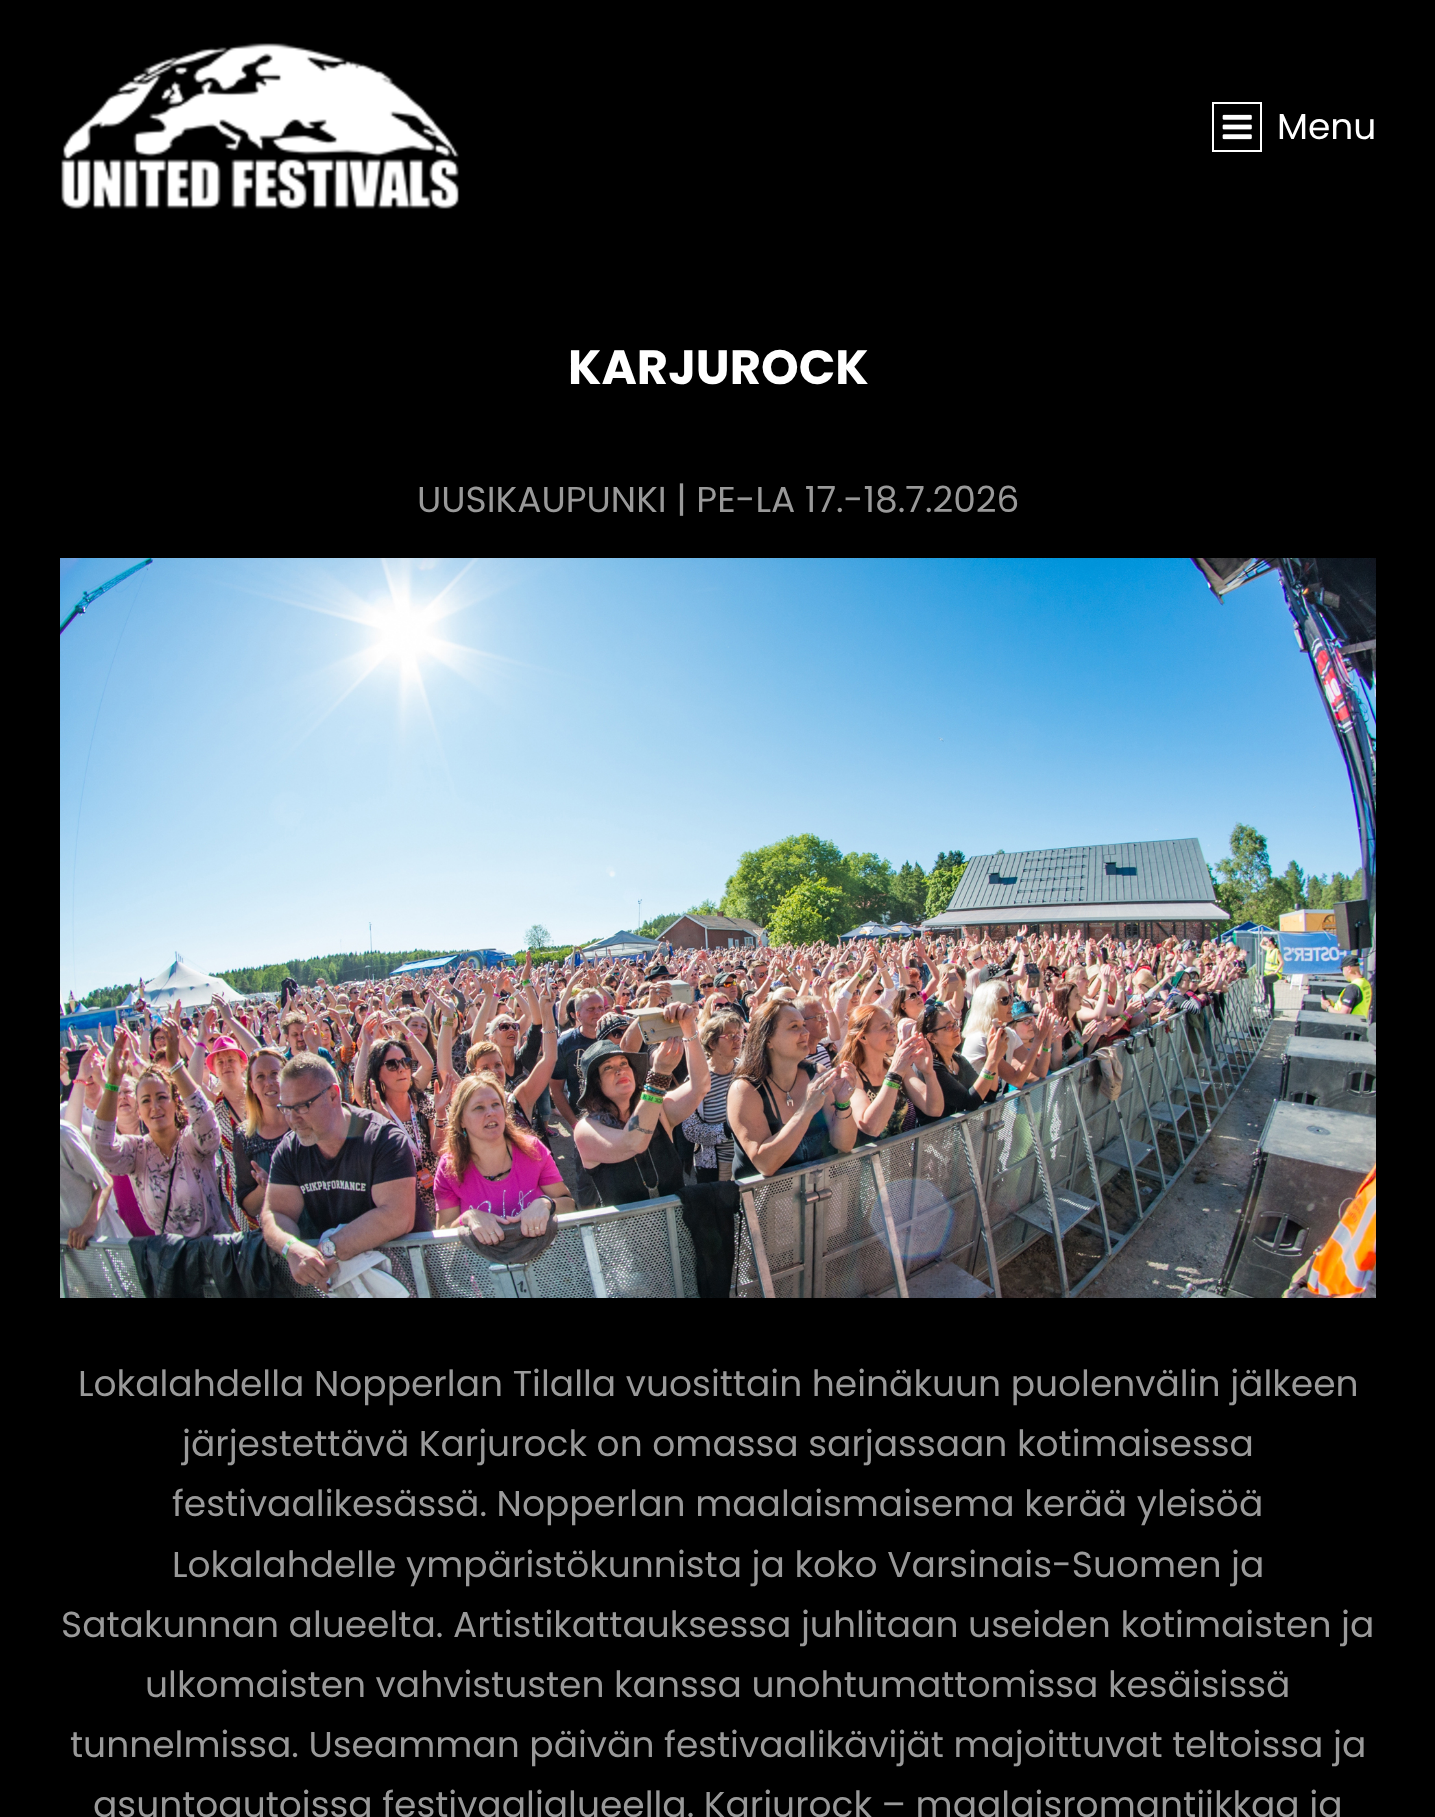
<!DOCTYPE html>
<meta charset="utf-8">
<style>body { margin: 0 } canvas { display: block }</style>
<canvas id="canvas" width="1435" height="1817"></canvas>
<script type="module">
  const canvas = document.getElementById("canvas");
  const ctx = canvas.getContext("2d");
  ctx.miterLimit = 4;
  ctx.fontKerning = "normal";
  async function loadImage(src) {
    const img = new Image();
    img.src = src;
    await img.decode();
    return img;
  }

  ctx.fillStyle = "#000000";
  ctx.fillRect(0, 0, 1435, 1817);
  ctx.drawImage(await loadImage("img1.png"), 61, 43, 398, 166);
  ctx.strokeStyle = "#ffffff";
  ctx.lineWidth = 2;
  ctx.strokeRect(1213, 103, 48, 48);
  ctx.drawImage(await loadImage("img2.png"), 1222, 114, 30, 26);
  ctx.font = "36px Poppins";
  ctx.fillStyle = "#ffffff";
  ctx.fillText("Menu", 1277, 139);
  ctx.font = "bold 48px Poppins";
  ctx.fillText("KARJUROCK", 568, 384);
  ctx.font = "36px Poppins";
  ctx.fillStyle = "#999999";
  ctx.fillText("UUSIKAUPUNKI | PE-LA 17.-18.7.2026", 417, 512);
  ctx.drawImage(await loadImage("img3.png"), 60, 558, 1316, 740);
  ctx.fillText("Lokalahdella Nopperlan Tilalla vuosittain heinäkuun puolenvälin jälkeen", 78, 1396);
  ctx.fillText("järjestettävä Karjurock on omassa sarjassaan kotimaisessa", 182, 1456);
  ctx.fillText("festivaalikesässä. Nopperlan maalaismaisema kerää yleisöä", 172, 1516);
  ctx.fillText("Lokalahdelle ympäristökunnista ja koko Varsinais-Suomen ja", 172, 1577);
  ctx.fillText("Satakunnan alueelta. Artistikattauksessa juhlitaan useiden kotimaisten ja", 61, 1637);
  ctx.fillText("ulkomaisten vahvistusten kanssa unohtumattomissa kesäisissä", 145, 1697);
  ctx.fillText("tunnelmissa. Useamman päivän festivaalikävijät majoittuvat teltoissa ja", 70, 1757);
  ctx.fillText("asuntoautoissa festivaalialueella. Karjurock – maalaisromantiikkaa ja", 93, 1817);
</script>
